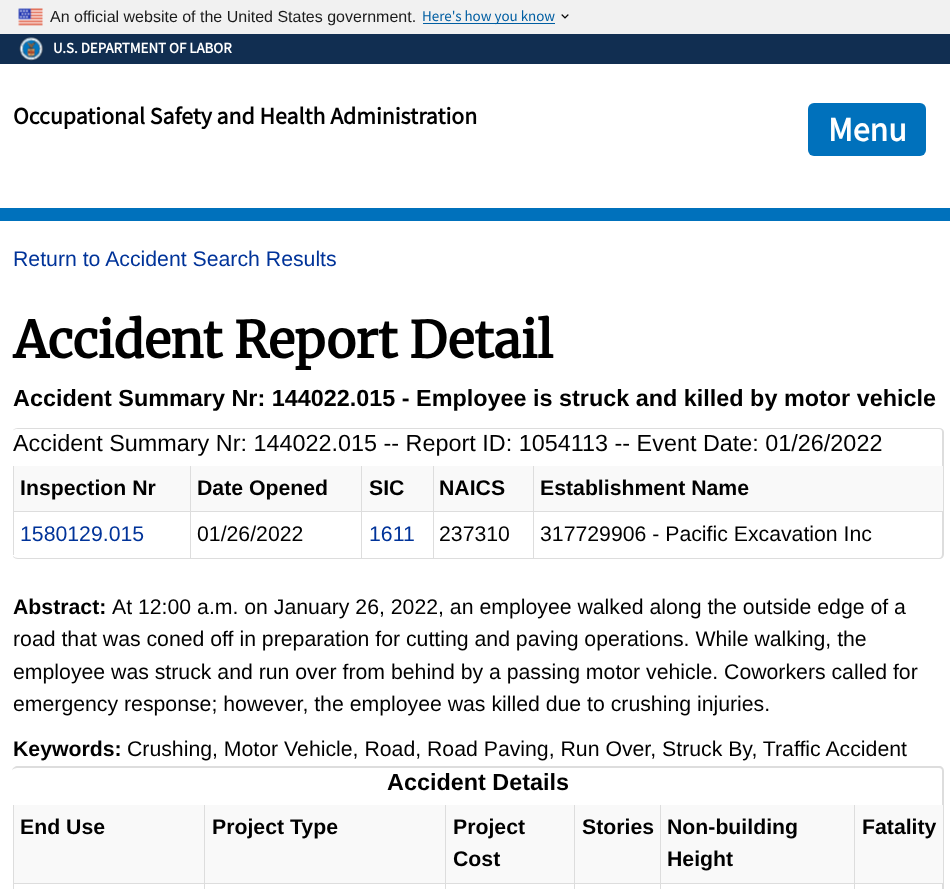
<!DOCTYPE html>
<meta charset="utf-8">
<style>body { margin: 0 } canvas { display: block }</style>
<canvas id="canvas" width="950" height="889"></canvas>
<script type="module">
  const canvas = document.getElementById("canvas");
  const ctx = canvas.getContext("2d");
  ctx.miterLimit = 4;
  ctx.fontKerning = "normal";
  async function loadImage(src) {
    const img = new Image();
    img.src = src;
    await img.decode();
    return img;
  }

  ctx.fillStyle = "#ffffff";
  ctx.fillRect(0, 0, 950, 889);
  ctx.fillStyle = "#f1f1f1";
  ctx.fillRect(0, 0, 950, 34);
  ctx.drawImage(await loadImage("img1.png"), 18, 8, 25, 18);
  ctx.font = "16px Liberation Sans";
  ctx.fillStyle = "#1b1b1b";
  ctx.fillText("An official website of the United States government.", 50, 22);
  ctx.drawImage(await loadImage("img2.png"), 561, 14, 8, 5);
  ctx.fillStyle = "#005ea2";
  ctx.fillRect(423, 23, 132, 1);
  ctx.font = "15px Source Sans Pro";
  ctx.fillText("Here's how you know", 422, 21);
  ctx.fillStyle = "#112e51";
  ctx.fillRect(0, 34, 950, 30);
  ctx.drawImage(await loadImage("img3.png"), 19, 37, 24, 24);
  ctx.font = "bold 14.9px Source Sans Pro";
  ctx.fillStyle = "#ffffff";
  ctx.fillText("U.S. DEPARTMENT OF LABOR", 53, 53);
  ctx.font = "bold 23.75px Source Sans Pro";
  ctx.fillStyle = "#000000";
  ctx.fillText("Occupational Safety and Health Administration", 13, 124);
  ctx.fillStyle = "#0071bc";
  ctx.beginPath();
  ctx.roundRect(808, 103, 118, 53, 6);
  ctx.fill();
  ctx.font = "bold 34px Source Sans Pro";
  ctx.fillStyle = "#ffffff";
  ctx.fillText("Menu", 828, 141);
  ctx.fillStyle = "#0071bc";
  ctx.fillRect(0, 208, 950, 13);
  ctx.font = "21.25px Liberation Sans";
  ctx.fillStyle = "#003399";
  ctx.fillText("Return to Accident Search Results", 13, 266);
  ctx.font = "bold 50px Merriweather";
  ctx.fillStyle = "#000000";
  ctx.fillText("Accident Report Detail", 13, 358);
  ctx.font = "bold 23.4px Liberation Sans";
  ctx.fillText("Accident Summary Nr: 144022.015 - Employee is struck and killed by motor vehicle", 13, 406);
  ctx.save();
  ctx.beginPath();
  ctx.rect(13, 428, 931, 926);
  ctx.clip();
  ctx.fillStyle = "#dddddd";
  ctx.beginPath();
  ctx.moveTo(18, 428);
  ctx.lineTo(939, 428);
  ctx.bezierCurveTo(942, 428, 944, 430, 944, 432);
  ctx.lineTo(944, 554);
  ctx.bezierCurveTo(944, 557, 942, 559, 939, 559);
  ctx.lineTo(18, 559);
  ctx.bezierCurveTo(15, 559, 12, 557, 12, 554);
  ctx.lineTo(12, 432);
  ctx.bezierCurveTo(12, 430, 15, 428, 18, 428);
  ctx.closePath();
  ctx.moveTo(18, 429);
  ctx.lineTo(939, 429);
  ctx.bezierCurveTo(941, 429, 942, 430, 942, 432);
  ctx.lineTo(942, 554);
  ctx.bezierCurveTo(942, 556, 941, 558, 939, 558);
  ctx.lineTo(18, 558);
  ctx.bezierCurveTo(15, 558, 12, 556, 12, 554);
  ctx.lineTo(12, 432);
  ctx.bezierCurveTo(12, 430, 15, 429, 18, 429);
  ctx.closePath();
  ctx.fill("evenodd");
  ctx.restore();
  ctx.font = "23.4px Liberation Sans";
  ctx.fillText("Accident Summary Nr: 144022.015 -- Report ID: 1054113 -- Event Date: 01/26/2022", 13, 451);
  ctx.fillStyle = "#f9f9f9";
  ctx.fillRect(14, 466, 176, 45);
  ctx.fillStyle = "#dddddd";
  ctx.fillRect(13, 466, 1, 45);
  ctx.font = "bold 21.25px Liberation Sans";
  ctx.fillStyle = "#000000";
  ctx.fillText("Inspection Nr", 20, 495);
  ctx.fillStyle = "#f9f9f9";
  ctx.fillRect(191, 466, 170, 45);
  ctx.fillStyle = "#dddddd";
  ctx.fillRect(190, 466, 1, 45);
  ctx.fillStyle = "#000000";
  ctx.fillText("Date Opened", 197, 495);
  ctx.fillStyle = "#f9f9f9";
  ctx.fillRect(362, 466, 71, 45);
  ctx.fillStyle = "#dddddd";
  ctx.fillRect(361, 466, 1, 45);
  ctx.fillStyle = "#000000";
  ctx.fillText("SIC", 369, 495);
  ctx.fillStyle = "#f9f9f9";
  ctx.fillRect(434, 466, 99, 45);
  ctx.fillStyle = "#dddddd";
  ctx.fillRect(433, 466, 1, 45);
  ctx.fillStyle = "#000000";
  ctx.fillText("NAICS", 439, 495);
  ctx.fillStyle = "#f9f9f9";
  ctx.fillRect(534, 466, 409, 45);
  ctx.fillStyle = "#dddddd";
  ctx.fillRect(533, 466, 1, 45);
  ctx.fillStyle = "#000000";
  ctx.fillText("Establishment Name", 540, 495);
  ctx.fillStyle = "#dddddd";
  ctx.fillRect(13, 511, 930, 1);
  ctx.fillRect(13, 511, 1, 44);
  ctx.font = "21.25px Liberation Sans";
  ctx.fillStyle = "#003399";
  ctx.fillText("1580129.015", 20, 541);
  ctx.fillStyle = "#dddddd";
  ctx.fillRect(190, 511, 1, 47);
  ctx.fillStyle = "#000000";
  ctx.fillText("01/26/2022", 197, 541);
  ctx.fillStyle = "#dddddd";
  ctx.fillRect(361, 511, 1, 47);
  ctx.fillStyle = "#003399";
  ctx.fillText("1611", 369, 541);
  ctx.fillStyle = "#dddddd";
  ctx.fillRect(433, 511, 1, 47);
  ctx.fillStyle = "#000000";
  ctx.fillText("237310", 439, 541);
  ctx.fillStyle = "#dddddd";
  ctx.fillRect(533, 511, 1, 47);
  ctx.fillStyle = "#000000";
  ctx.fillText("317729906 - Pacific Excavation Inc", 540, 541);
  ctx.font = "bold 21.25px Liberation Sans";
  ctx.fillText("Abstract:", 13, 614);
  ctx.font = "21.25px Liberation Sans";
  ctx.fillText("At 12:00 a.m. on January 26, 2022, an employee walked along the outside edge of a", 112, 614);
  ctx.fillText("road that was coned off in preparation for cutting and paving operations. While walking, the", 13, 646);
  ctx.fillText("employee was struck and run over from behind by a passing motor vehicle. Coworkers called for", 13, 679);
  ctx.fillText("emergency response; however, the employee was killed due to crushing injuries.", 13, 711);
  ctx.font = "bold 21.25px Liberation Sans";
  ctx.fillText("Keywords:", 13, 756);
  ctx.font = "21.25px Liberation Sans";
  ctx.fillText("Crushing, Motor Vehicle, Road, Road Paving, Run Over, Struck By, Traffic Accident", 127, 756);
  ctx.fillStyle = "#dddddd";
  ctx.beginPath();
  ctx.moveTo(18, 766);
  ctx.lineTo(939, 766);
  ctx.bezierCurveTo(942, 766, 944, 768, 944, 771);
  ctx.lineTo(944, 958);
  ctx.bezierCurveTo(944, 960, 942, 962, 939, 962);
  ctx.lineTo(18, 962);
  ctx.bezierCurveTo(15, 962, 12, 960, 12, 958);
  ctx.lineTo(12, 771);
  ctx.bezierCurveTo(12, 768, 15, 766, 18, 766);
  ctx.closePath();
  ctx.moveTo(18, 768);
  ctx.lineTo(939, 768);
  ctx.bezierCurveTo(941, 768, 942, 769, 942, 771);
  ctx.lineTo(942, 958);
  ctx.bezierCurveTo(942, 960, 941, 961, 939, 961);
  ctx.lineTo(18, 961);
  ctx.bezierCurveTo(15, 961, 12, 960, 12, 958);
  ctx.lineTo(12, 771);
  ctx.bezierCurveTo(12, 769, 15, 768, 18, 768);
  ctx.closePath();
  ctx.fill("evenodd");
  ctx.font = "bold 23.4px Liberation Sans";
  ctx.fillStyle = "#000000";
  ctx.fillText("Accident Details", 387, 790);
  ctx.fillStyle = "#f9f9f9";
  ctx.fillRect(14, 805, 190, 78);
  ctx.fillStyle = "#dddddd";
  ctx.fillRect(13, 805, 1, 78);
  ctx.font = "bold 21.25px Liberation Sans";
  ctx.fillStyle = "#000000";
  ctx.fillText("End Use", 20, 834);
  ctx.fillStyle = "#f9f9f9";
  ctx.fillRect(205, 805, 240, 78);
  ctx.fillStyle = "#dddddd";
  ctx.fillRect(204, 805, 1, 78);
  ctx.fillStyle = "#000000";
  ctx.fillText("Project Type", 212, 834);
  ctx.fillStyle = "#f9f9f9";
  ctx.fillRect(446, 805, 128, 78);
  ctx.fillStyle = "#dddddd";
  ctx.fillRect(445, 805, 1, 78);
  ctx.fillStyle = "#000000";
  ctx.fillText("Project", 453, 834);
  ctx.fillText("Cost", 453, 866);
  ctx.fillStyle = "#f9f9f9";
  ctx.fillRect(575, 805, 85, 78);
  ctx.fillStyle = "#dddddd";
  ctx.fillRect(574, 805, 1, 78);
  ctx.fillStyle = "#000000";
  ctx.fillText("Stories", 582, 834);
  ctx.fillStyle = "#f9f9f9";
  ctx.fillRect(661, 805, 193, 78);
  ctx.fillStyle = "#dddddd";
  ctx.fillRect(660, 805, 1, 78);
  ctx.fillStyle = "#000000";
  ctx.fillText("Non-building", 667, 834);
  ctx.fillText("Height", 667, 866);
  ctx.fillStyle = "#f9f9f9";
  ctx.fillRect(855, 805, 88, 78);
  ctx.fillStyle = "#dddddd";
  ctx.fillRect(854, 805, 1, 78);
  ctx.fillStyle = "#000000";
  ctx.fillText("Fatality", 862, 834);
  ctx.fillStyle = "#dddddd";
  ctx.fillRect(13, 883, 930, 1);
  ctx.fillRect(13, 883, 1, 6);
  ctx.fillRect(204, 883, 1, 6);
  ctx.fillRect(445, 883, 1, 6);
  ctx.fillRect(574, 883, 1, 6);
  ctx.fillRect(660, 883, 1, 6);
  ctx.fillRect(854, 883, 1, 6);
</script>
